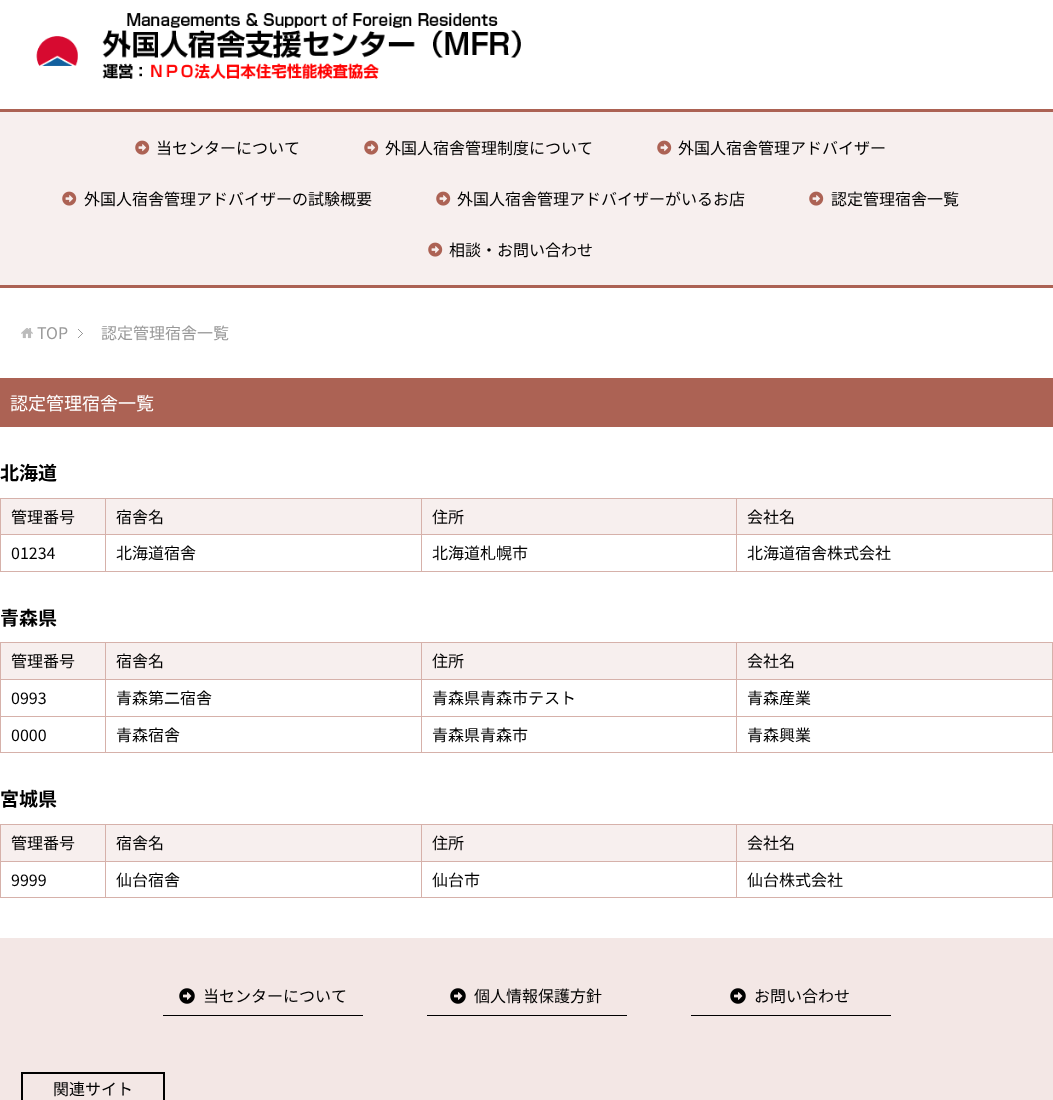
<!DOCTYPE html>
<meta charset="utf-8">
<style>body { margin: 0 } canvas { display: block }</style>
<canvas id="canvas" width="1053" height="1100"></canvas>
<script type="module">
  const canvas = document.getElementById("canvas");
  const ctx = canvas.getContext("2d");
  ctx.miterLimit = 4;
  ctx.fontKerning = "normal";
  async function loadImage(src) {
    const img = new Image();
    img.src = src;
    await img.decode();
    return img;
  }

  ctx.fillStyle = "#ffffff";
  ctx.fillRect(0, 0, 1053, 1100);
  ctx.drawImage(await loadImage("img1.png"), 36, 13, 485, 66);
  ctx.fillStyle = "#f7efee";
  ctx.fillRect(0, 112, 1053, 173);
  ctx.fillStyle = "#ac6254";
  ctx.fillRect(0, 109, 1053, 3);
  ctx.fillRect(0, 285, 1053, 3);
  ctx.drawImage(await loadImage("img2.png"), 135, 140, 15, 15);
  ctx.font = "16px Noto Sans JP";
  ctx.fillStyle = "#000000";
  ctx.fillText("当センターについて", 156, 154);
  ctx.drawImage(await loadImage("img2.png"), 364, 140, 15, 15);
  ctx.fillText("外国人宿舎管理制度について", 385, 154);
  ctx.drawImage(await loadImage("img2.png"), 657, 140, 15, 15);
  ctx.fillText("外国人宿舎管理アドバイザー", 678, 154);
  ctx.drawImage(await loadImage("img2.png"), 62, 191, 15, 15);
  ctx.fillText("外国人宿舎管理アドバイザーの試験概要", 84, 205);
  ctx.drawImage(await loadImage("img2.png"), 436, 191, 15, 15);
  ctx.fillText("外国人宿舎管理アドバイザーがいるお店", 457, 205);
  ctx.drawImage(await loadImage("img2.png"), 809, 191, 15, 15);
  ctx.fillText("認定管理宿舎一覧", 831, 205);
  ctx.drawImage(await loadImage("img2.png"), 428, 242, 15, 15);
  ctx.fillText("相談・お問い合わせ", 449, 256);
  ctx.drawImage(await loadImage("img3.png"), 78, 329, 5, 9);
  ctx.drawImage(await loadImage("img4.png"), 21, 328, 12, 11);
  ctx.fillStyle = "#999999";
  ctx.fillText("TOP", 37, 339);
  ctx.fillText("認定管理宿舎一覧", 101, 339);
  ctx.fillStyle = "#ac6254";
  ctx.fillRect(0, 378, 1053, 49);
  ctx.font = "18px Noto Sans JP";
  ctx.fillStyle = "#ffffff";
  ctx.fillText("認定管理宿舎一覧", 10, 410);
  ctx.font = "bold 19px Noto Sans JP";
  ctx.fillStyle = "#000000";
  ctx.fillText("北海道", 0, 480);
  ctx.fillStyle = "#d6b1aa";
  ctx.fillRect(0, 498, 1053, 1);
  ctx.fillRect(1052, 498, 1, 74);
  ctx.fillRect(0, 571, 1053, 1);
  ctx.fillRect(0, 498, 1, 74);
  ctx.fillStyle = "#f7efee";
  ctx.fillRect(1, 499, 104, 35);
  ctx.font = "16px Noto Sans JP";
  ctx.fillStyle = "#000000";
  ctx.fillText("管理番号", 11, 523);
  ctx.fillStyle = "#f7efee";
  ctx.fillRect(106, 499, 315, 35);
  ctx.fillStyle = "#d6b1aa";
  ctx.fillRect(736, 534, 317, 1);
  ctx.fillRect(736, 534, 1, 38);
  ctx.fillRect(421, 534, 316, 1);
  ctx.fillRect(421, 534, 1, 38);
  ctx.fillRect(105, 534, 317, 1);
  ctx.fillRect(105, 534, 1, 38);
  ctx.fillRect(0, 534, 106, 1);
  ctx.fillRect(105, 498, 1, 37);
  ctx.fillStyle = "#000000";
  ctx.fillText("宿舎名", 116, 523);
  ctx.fillStyle = "#f7efee";
  ctx.fillRect(422, 499, 314, 35);
  ctx.fillStyle = "#d6b1aa";
  ctx.fillRect(421, 498, 1, 37);
  ctx.fillStyle = "#000000";
  ctx.fillText("住所", 432, 523);
  ctx.fillStyle = "#f7efee";
  ctx.fillRect(737, 499, 315, 35);
  ctx.fillStyle = "#d6b1aa";
  ctx.fillRect(736, 498, 1, 37);
  ctx.fillStyle = "#000000";
  ctx.fillText("会社名", 747, 523);
  ctx.fillText("01234", 11, 559);
  ctx.fillText("北海道宿舎", 116, 559);
  ctx.fillText("北海道札幌市", 432, 559);
  ctx.fillText("北海道宿舎株式会社", 747, 559);
  ctx.font = "bold 19px Noto Sans JP";
  ctx.fillText("青森県", 0, 625);
  ctx.fillStyle = "#d6b1aa";
  ctx.fillRect(0, 642, 1053, 1);
  ctx.fillRect(1052, 642, 1, 111);
  ctx.fillRect(0, 752, 1053, 1);
  ctx.fillRect(0, 642, 1, 111);
  ctx.fillStyle = "#f7efee";
  ctx.fillRect(1, 643, 104, 36);
  ctx.font = "16px Noto Sans JP";
  ctx.fillStyle = "#000000";
  ctx.fillText("管理番号", 11, 667);
  ctx.fillStyle = "#f7efee";
  ctx.fillRect(106, 643, 315, 36);
  ctx.fillStyle = "#d6b1aa";
  ctx.fillRect(736, 679, 317, 1);
  ctx.fillRect(736, 716, 317, 1);
  ctx.fillRect(736, 716, 1, 37);
  ctx.fillRect(421, 716, 316, 1);
  ctx.fillRect(736, 679, 1, 38);
  ctx.fillRect(421, 679, 316, 1);
  ctx.fillRect(421, 716, 1, 37);
  ctx.fillRect(105, 716, 317, 1);
  ctx.fillRect(421, 679, 1, 38);
  ctx.fillRect(105, 679, 317, 1);
  ctx.fillRect(105, 716, 1, 37);
  ctx.fillRect(0, 716, 106, 1);
  ctx.fillRect(105, 679, 1, 38);
  ctx.fillRect(0, 679, 106, 1);
  ctx.fillRect(105, 642, 1, 38);
  ctx.fillStyle = "#000000";
  ctx.fillText("宿舎名", 116, 667);
  ctx.fillStyle = "#f7efee";
  ctx.fillRect(422, 643, 314, 36);
  ctx.fillStyle = "#d6b1aa";
  ctx.fillRect(421, 642, 1, 38);
  ctx.fillStyle = "#000000";
  ctx.fillText("住所", 432, 667);
  ctx.fillStyle = "#f7efee";
  ctx.fillRect(737, 643, 315, 36);
  ctx.fillStyle = "#d6b1aa";
  ctx.fillRect(736, 642, 1, 38);
  ctx.fillStyle = "#000000";
  ctx.fillText("会社名", 747, 667);
  ctx.fillText("0993", 11, 704);
  ctx.fillText("青森第二宿舎", 116, 704);
  ctx.fillText("青森県青森市テスト", 432, 704);
  ctx.fillText("青森産業", 747, 704);
  ctx.fillText("0000", 11, 741);
  ctx.fillText("青森宿舎", 116, 741);
  ctx.fillText("青森県青森市", 432, 741);
  ctx.fillText("青森興業", 747, 741);
  ctx.font = "bold 19px Noto Sans JP";
  ctx.fillText("宮城県", 0, 806);
  ctx.fillStyle = "#d6b1aa";
  ctx.fillRect(0, 824, 1053, 1);
  ctx.fillRect(1052, 824, 1, 74);
  ctx.fillRect(0, 897, 1053, 1);
  ctx.fillRect(0, 824, 1, 74);
  ctx.fillStyle = "#f7efee";
  ctx.fillRect(1, 825, 104, 36);
  ctx.font = "16px Noto Sans JP";
  ctx.fillStyle = "#000000";
  ctx.fillText("管理番号", 11, 849);
  ctx.fillStyle = "#f7efee";
  ctx.fillRect(106, 825, 315, 36);
  ctx.fillStyle = "#d6b1aa";
  ctx.fillRect(736, 861, 317, 1);
  ctx.fillRect(736, 861, 1, 37);
  ctx.fillRect(421, 861, 316, 1);
  ctx.fillRect(421, 861, 1, 37);
  ctx.fillRect(105, 861, 317, 1);
  ctx.fillRect(105, 861, 1, 37);
  ctx.fillRect(0, 861, 106, 1);
  ctx.fillRect(105, 824, 1, 38);
  ctx.fillStyle = "#000000";
  ctx.fillText("宿舎名", 116, 849);
  ctx.fillStyle = "#f7efee";
  ctx.fillRect(422, 825, 314, 36);
  ctx.fillStyle = "#d6b1aa";
  ctx.fillRect(421, 824, 1, 38);
  ctx.fillStyle = "#000000";
  ctx.fillText("住所", 432, 849);
  ctx.fillStyle = "#f7efee";
  ctx.fillRect(737, 825, 315, 36);
  ctx.fillStyle = "#d6b1aa";
  ctx.fillRect(736, 824, 1, 38);
  ctx.fillStyle = "#000000";
  ctx.fillText("会社名", 747, 849);
  ctx.fillText("9999", 11, 886);
  ctx.fillText("仙台宿舎", 116, 886);
  ctx.fillText("仙台市", 432, 886);
  ctx.fillText("仙台株式会社", 747, 886);
  ctx.fillStyle = "#f3e7e5";
  ctx.fillRect(0, 938, 1053, 162);
  ctx.fillStyle = "#000000";
  ctx.fillRect(163, 1015, 200, 1);
  ctx.drawImage(await loadImage("img5.png"), 179, 988, 16, 16);
  ctx.fillText("当センターについて", 203, 1002);
  ctx.fillRect(427, 1015, 200, 1);
  ctx.drawImage(await loadImage("img5.png"), 450, 988, 16, 16);
  ctx.fillText("個人情報保護方針", 474, 1002);
  ctx.fillRect(691, 1015, 200, 1);
  ctx.drawImage(await loadImage("img5.png"), 730, 988, 16, 16);
  ctx.fillText("お問い合わせ", 754, 1002);
  ctx.strokeStyle = "#000000";
  ctx.lineWidth = 2;
  ctx.strokeRect(22, 1073, 142, 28);
  ctx.fillText("関連サイト", 53, 1095);
</script>
